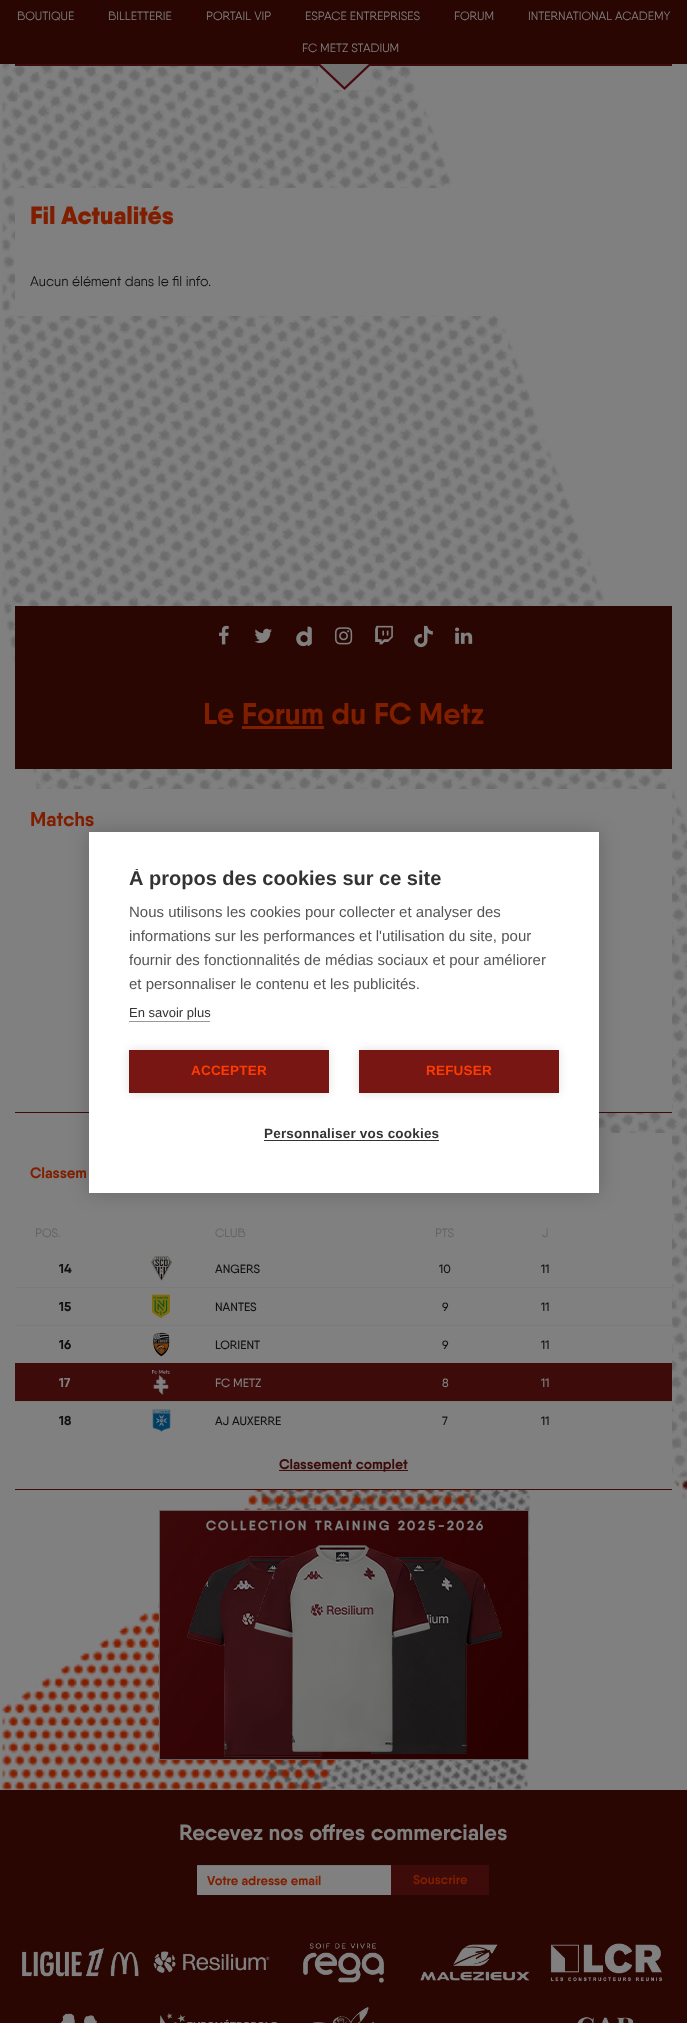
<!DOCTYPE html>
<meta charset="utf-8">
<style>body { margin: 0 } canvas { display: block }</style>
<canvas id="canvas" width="687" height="2023"></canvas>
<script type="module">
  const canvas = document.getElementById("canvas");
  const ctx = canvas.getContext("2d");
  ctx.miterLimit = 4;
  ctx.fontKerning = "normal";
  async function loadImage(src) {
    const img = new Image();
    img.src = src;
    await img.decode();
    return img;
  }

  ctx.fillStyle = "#808080";
  ctx.fillRect(0, 0, 687, 2023);
  ctx.fillStyle = "#2a0602";
  ctx.fillRect(0, 0, 687, 64);
  ctx.font = "12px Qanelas";
  ctx.fillStyle = "#808080";
  ctx.fillText("BOUTIQUE", 17, 20);
  ctx.fillText("BILLETTERIE", 108, 20);
  ctx.fillText("PORTAIL VIP", 206, 20);
  ctx.fillText("ESPACE ENTREPRISES", 305, 20);
  ctx.fillText("FORUM", 454, 20);
  ctx.fillText("INTERNATIONAL ACADEMY", 528, 20);
  ctx.fillText("FC METZ STADIUM", 302, 52);
  ctx.drawImage(await loadImage("img1.png"), 1, 64, 686, 1726);
  ctx.fillStyle = "#3c0b0a";
  ctx.fillRect(15, 64, 657, 2);
  ctx.drawImage(await loadImage("img2.png"), 318, 64, 53, 26);
  ctx.fillStyle = "#808080";
  ctx.fillRect(15, 188, 481, 128);
  ctx.font = "900 25px Qanelas";
  ctx.fillStyle = "#801e00";
  ctx.fillText("Fil Actualités", 30, 224);
  ctx.font = "14px Qanelas";
  ctx.fillStyle = "#111111";
  ctx.fillText("Aucun élément dans le fil info.", 30, 286);
  ctx.fillStyle = "#2a0602";
  ctx.fillRect(15, 606, 657, 163);
  ctx.drawImage(await loadImage("img3.png"), 219, 625, 10, 20);
  ctx.drawImage(await loadImage("img4.png"), 254, 628, 18, 15);
  ctx.drawImage(await loadImage("img5.png"), 296, 626, 16, 21);
  ctx.drawImage(await loadImage("img6.png"), 335, 627, 18, 18);
  ctx.drawImage(await loadImage("img7.png"), 375, 625, 18, 20);
  ctx.drawImage(await loadImage("img8.png"), 414, 625, 19, 23);
  ctx.drawImage(await loadImage("img9.png"), 455, 627, 18, 17);
  ctx.font = "bold 30px Qanelas";
  ctx.fillStyle = "#801e00";
  ctx.fillText("Le Forum du FC Metz", 203, 724);
  ctx.fillRect(242, 726, 82, 3);
  ctx.fillStyle = "#808080";
  ctx.fillRect(36, 789, 636, 323);
  ctx.font = "bold 20px Qanelas";
  ctx.fillStyle = "#801e00";
  ctx.fillText("Matchs", 30, 826);
  ctx.fillStyle = "#3c0b0a";
  ctx.fillRect(15, 1112, 657, 1);
  ctx.fillStyle = "#808080";
  ctx.fillRect(99, 1133, 573, 356);
  ctx.font = "bold 15px Qanelas";
  ctx.fillStyle = "#801e00";
  ctx.fillText("Classem", 30, 1178);
  ctx.fillStyle = "#3c0b0a";
  ctx.fillRect(15, 1489, 657, 1);
  ctx.font = "12px Qanelas";
  ctx.fillStyle = "#616161";
  ctx.fillText("POS.", 35, 1237);
  ctx.fillText("CLUB", 215, 1237);
  ctx.fillText("PTS", 435, 1237);
  ctx.fillText("J", 542, 1237);
  ctx.fillStyle = "#7a7a7a";
  ctx.fillRect(15, 1287, 658, 1);
  ctx.font = "bold 13px Qanelas";
  ctx.fillStyle = "#111111";
  ctx.fillText("14", 59, 1273);
  ctx.drawImage(await loadImage("img10.png"), 151, 1256, 21, 25);
  ctx.font = "500 12px Qanelas";
  ctx.fillText("ANGERS", 215, 1273);
  ctx.fillText("10", 439, 1273);
  ctx.fillText("11", 541, 1273);
  ctx.fillStyle = "#7a7a7a";
  ctx.fillRect(15, 1325, 658, 1);
  ctx.font = "bold 13px Qanelas";
  ctx.fillStyle = "#111111";
  ctx.fillText("15", 59, 1311);
  ctx.drawImage(await loadImage("img11.png"), 151, 1294, 19, 24);
  ctx.font = "500 12px Qanelas";
  ctx.fillText("NANTES", 215, 1311);
  ctx.fillText("9", 442, 1311);
  ctx.fillText("11", 541, 1311);
  ctx.fillStyle = "#7a7a7a";
  ctx.fillRect(672, 1363, 1, 1);
  ctx.font = "bold 13px Qanelas";
  ctx.fillStyle = "#111111";
  ctx.fillText("16", 59, 1349);
  ctx.drawImage(await loadImage("img12.png"), 153, 1332, 17, 25);
  ctx.font = "500 12px Qanelas";
  ctx.fillText("LORIENT", 215, 1349);
  ctx.fillText("9", 442, 1349);
  ctx.fillText("11", 541, 1349);
  ctx.fillStyle = "#7a7a7a";
  ctx.fillRect(15, 1401, 658, 1);
  ctx.fillStyle = "#3c0b0a";
  ctx.fillRect(15, 1363, 657, 38);
  ctx.font = "bold 13px Qanelas";
  ctx.fillStyle = "#808080";
  ctx.fillText("17", 59, 1387);
  ctx.drawImage(await loadImage("img13.png"), 152, 1370, 18, 25);
  ctx.font = "500 12px Qanelas";
  ctx.fillText("FC METZ", 215, 1387);
  ctx.fillText("8", 442, 1387);
  ctx.fillText("11", 541, 1387);
  ctx.font = "bold 13px Qanelas";
  ctx.fillStyle = "#111111";
  ctx.fillText("18", 59, 1425);
  ctx.drawImage(await loadImage("img14.png"), 152, 1409, 19, 23);
  ctx.font = "500 12px Qanelas";
  ctx.fillText("AJ AUXERRE", 215, 1425);
  ctx.fillText("7", 442, 1425);
  ctx.fillText("11", 541, 1425);
  ctx.fillStyle = "#3c0b0a";
  ctx.fillRect(279, 1470, 129, 1);
  ctx.font = "bold 14px Qanelas";
  ctx.fillText("Classement complet", 279, 1469);
  ctx.strokeStyle = "#616161";
  ctx.strokeRect(159.5, 1510.5, 369, 249);
  ctx.drawImage(await loadImage("img15.png"), 160, 1511, 368, 248);
  ctx.fillStyle = "rgba(0, 0, 0, 0.2)";
  ctx.filter = "blur(10px)";
  ctx.beginPath();
  ctx.rect(89, 832, 510, 361);
  ctx.fill();
  ctx.filter = "none";
  ctx.fillStyle = "#ffffff";
  ctx.fillRect(89, 832, 510, 361);
  ctx.save();
  ctx.beginPath();
  ctx.rect(129, 869, 430, 181);
  ctx.clip();
  ctx.font = "bold 20px Liberation Sans";
  ctx.fillStyle = "#333333";
  ctx.fillText("À propos des cookies sur ce site", 129, 885);
  ctx.restore();
  ctx.font = "15px Liberation Sans";
  ctx.fillStyle = "#555555";
  ctx.fillText("Nous utilisons les cookies pour collecter et analyser des", 129, 917);
  ctx.fillText("informations sur les performances et l'utilisation du site, pour", 129, 941);
  ctx.fillText("fournir des fonctionnalités de médias sociaux et pour améliorer", 129, 965);
  ctx.fillText("et personnaliser le contenu et les publicités.", 129, 989);
  ctx.font = "13px Liberation Sans";
  ctx.fillStyle = "#333333";
  ctx.fillText("En savoir plus", 129, 1017);
  ctx.fillStyle = "#999999";
  ctx.fillRect(129, 1021, 81, 1);
  ctx.fillStyle = "rgba(0, 0, 0, 0.12)";
  ctx.filter = "blur(5px)";
  ctx.beginPath();
  ctx.rect(129, 1050, 200, 43);
  ctx.fill();
  ctx.filter = "none";
  ctx.fillStyle = "#781614";
  ctx.fillRect(129, 1050, 200, 43);
  ctx.letterSpacing = "0.2px";
  ctx.font = "bold 13.5px Liberation Sans";
  ctx.fillStyle = "#ff3c00";
  ctx.fillText("ACCEPTER", 191, 1075);
  ctx.fillStyle = "rgba(0, 0, 0, 0.12)";
  ctx.filter = "blur(5px)";
  ctx.beginPath();
  ctx.rect(359, 1050, 200, 43);
  ctx.fill();
  ctx.filter = "none";
  ctx.fillStyle = "#781614";
  ctx.fillRect(359, 1050, 200, 43);
  ctx.fillStyle = "#ff3c00";
  ctx.fillText("REFUSER", 426, 1075);
  ctx.fillStyle = "#333333";
  ctx.fillText("Personnaliser vos cookies", 264, 1138);
  ctx.fillRect(264, 1140, 175, 1);
  ctx.fillStyle = "#2a0602";
  ctx.fillRect(0, 1790, 687, 233);
  ctx.letterSpacing = "0px";
  ctx.font = "bold 22px Qanelas";
  ctx.fillStyle = "#808080";
  ctx.fillText("Recevez nos offres commerciales", 179, 1840);
  ctx.fillRect(197, 1866, 194, 29);
  ctx.fillStyle = "#767676";
  ctx.fillRect(197, 1865, 195, 1);
  ctx.font = "bold 13px Qanelas";
  ctx.fillStyle = "#801e00";
  ctx.fillText("Votre adresse email", 207, 1885);
  ctx.fillStyle = "#3c0b0a";
  ctx.fillRect(391, 1865, 98, 30);
  ctx.fillStyle = "#801e00";
  ctx.fillText("Souscrire", 413, 1884);
  ctx.drawImage(await loadImage("img16.png"), 22, 1948, 117, 29);
  ctx.drawImage(await loadImage("img17.png"), 153, 1951, 117, 22);
  ctx.drawImage(await loadImage("img18.png"), 303, 1943, 81, 40);
  ctx.drawImage(await loadImage("img19.png"), 420, 1944, 110, 37);
  ctx.drawImage(await loadImage("img20.png"), 550, 1943, 112, 39);
  ctx.drawImage(await loadImage("img21.png"), 61, 2013, 36, 10);
  ctx.drawImage(await loadImage("img22.png"), 159, 2013, 118, 10);
  ctx.drawImage(await loadImage("img23.png"), 312, 2007, 63, 16);
  ctx.drawImage(await loadImage("img24.png"), 577, 2017, 57, 6);
</script>
